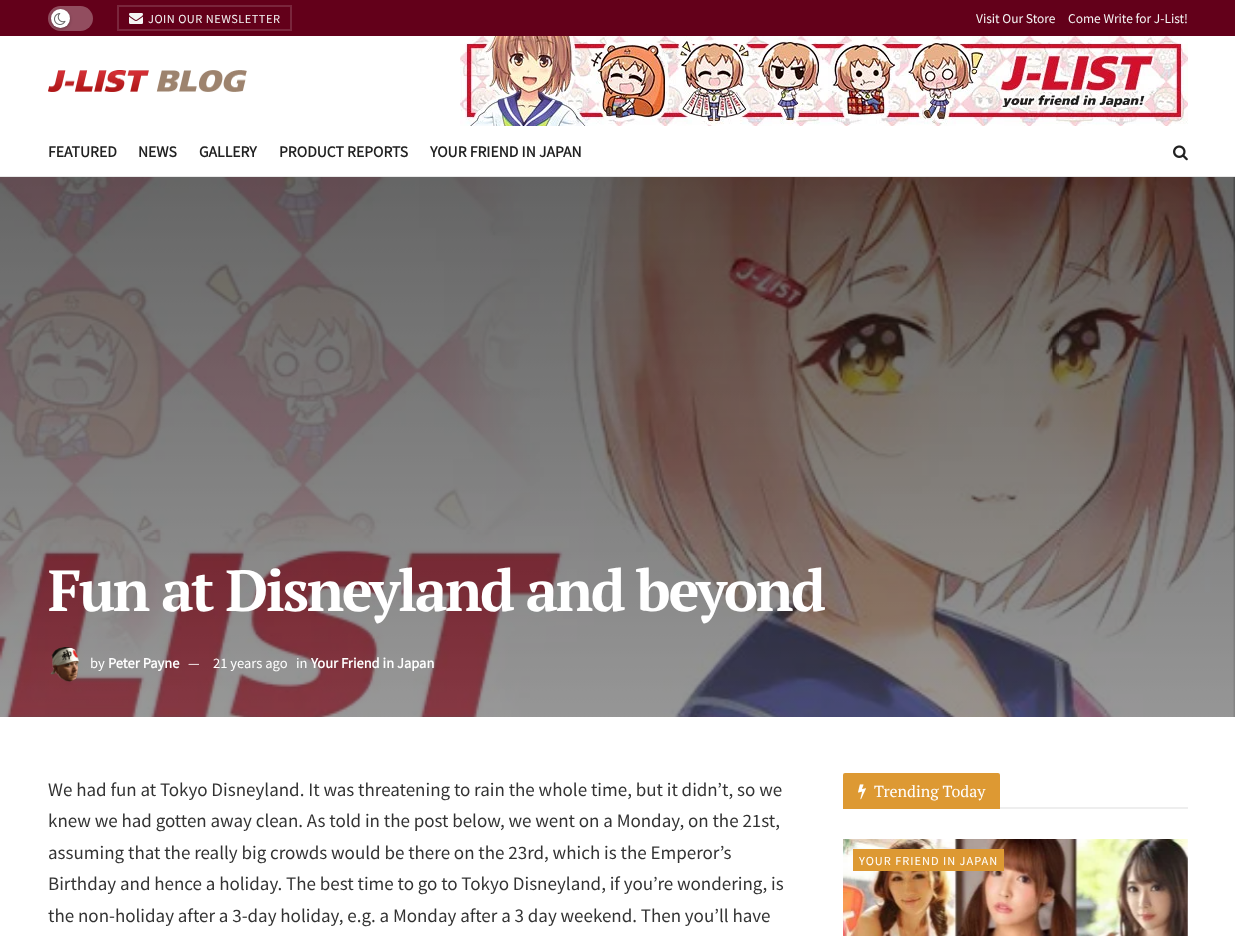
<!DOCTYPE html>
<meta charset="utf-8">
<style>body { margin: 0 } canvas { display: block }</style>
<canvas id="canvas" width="1235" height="936"></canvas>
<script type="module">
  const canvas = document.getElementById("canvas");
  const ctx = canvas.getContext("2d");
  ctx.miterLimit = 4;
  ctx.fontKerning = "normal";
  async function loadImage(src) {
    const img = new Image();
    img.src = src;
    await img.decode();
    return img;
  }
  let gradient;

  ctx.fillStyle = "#ffffff";
  ctx.fillRect(0, 0, 1235, 936);
  ctx.fillStyle = "#63001a";
  ctx.fillRect(0, 0, 1235, 36);
  ctx.fillStyle = "#924d5f";
  ctx.beginPath();
  ctx.roundRect(48, 6, 45, 25, 12.5);
  ctx.fill();
  ctx.fillStyle = "rgba(0, 0, 0, 0.3)";
  ctx.filter = "blur(1.5px)";
  ctx.beginPath();
  ctx.roundRect(51, 10, 19, 19, 9.5);
  ctx.fill();
  ctx.filter = "none";
  ctx.fillStyle = "#ffffff";
  ctx.beginPath();
  ctx.arc(60.5, 18.5, 9.5, 0, Math.PI * 2);
  ctx.fill();
  ctx.drawImage(await loadImage("img1.png"), 54, 13, 12, 12);
  ctx.strokeStyle = "#7a263c";
  ctx.lineWidth = 2;
  ctx.strokeRect(118, 6, 173, 24);
  ctx.drawImage(await loadImage("img2.png"), 129, 13, 14, 11);
  ctx.letterSpacing = "0.5px";
  ctx.font = "100 11px Noto Sans JP";
  ctx.fillStyle = "#f5f5f5";
  ctx.fillText("JOIN OUR NEWSLETTER", 148, 23);
  ctx.letterSpacing = "0px";
  ctx.font = "100 12px Noto Sans JP";
  ctx.fillText("Visit Our Store", 976, 23);
  ctx.fillText("Come Write for J-List!", 1068, 23);
  ctx.drawImage(await loadImage("img3.png"), 48, 70, 199, 22);
  ctx.drawImage(await loadImage("img4.png"), 460, 36, 728, 90);
  ctx.fillStyle = "#e8e8e8";
  ctx.fillRect(0, 176, 1235, 1);
  ctx.font = "bold 14px Noto Sans JP";
  ctx.fillStyle = "#212121";
  ctx.fillText("FEATURED", 48, 157);
  ctx.fillText("NEWS", 138, 157);
  ctx.fillText("GALLERY", 199, 157);
  ctx.fillText("PRODUCT REPORTS", 279, 157);
  ctx.fillText("YOUR FRIEND IN JAPAN", 430, 157);
  ctx.drawImage(await loadImage("img5.png"), 1173, 145, 15, 16);
  gradient = ctx.createLinearGradient(618, 177, 618, 717);
  gradient.addColorStop(0, "#000000");
  gradient.addColorStop(1, "#545454");
  ctx.fillStyle = gradient;
  ctx.fillRect(0, 177, 1235, 540);
  ctx.drawImage(await loadImage("img6.png"), 0, 177, 1235, 540);
  ctx.letterSpacing = "-2.3px";
  ctx.font = "bold 58px PT Serif";
  ctx.fillStyle = "#ffffff";
  ctx.fillText("Fun at Disneyland and beyond", 48, 611);
  ctx.drawImage(await loadImage("img7.png"), 50, 647, 30, 35);
  ctx.letterSpacing = "0px";
  ctx.font = "100 13px Noto Sans JP";
  ctx.fillText("by", 90, 668);
  ctx.font = "bold 13px Noto Sans JP";
  ctx.fillText("Peter Payne", 108, 668);
  ctx.font = "100 13px Noto Sans JP";
  ctx.fillText("—", 188, 668);
  ctx.fillText("21 years ago", 213, 668);
  ctx.fillText("in", 296, 668);
  ctx.font = "bold 13px Noto Sans JP";
  ctx.fillText("Your Friend in Japan", 311, 668);
  ctx.font = "100 17px Noto Sans JP";
  ctx.fillStyle = "#333333";
  ctx.fillText("We had fun at Tokyo Disneyland. It was threatening to rain the whole time, but it didn’t, so we", 48, 796);
  ctx.fillText("knew we had gotten away clean. As told in the post below, we went on a Monday, on the 21st,", 48, 827);
  ctx.fillText("assuming that the really big crowds would be there on the 23rd, which is the Emperor’s", 48, 859);
  ctx.fillText("Birthday and hence a holiday. The best time to go to Tokyo Disneyland, if you’re wondering, is", 48, 890);
  ctx.fillText("the non-holiday after a 3-day holiday, e.g. a Monday after a 3 day weekend. Then you’ll have", 48, 922);
  ctx.fillStyle = "#eeeeee";
  ctx.fillRect(1000, 807, 188, 2);
  ctx.fillStyle = "#dd9933";
  ctx.beginPath();
  ctx.roundRect(843, 773, 157, 36, [2, 2, 0, 0]);
  ctx.fill();
  ctx.drawImage(await loadImage("img8.png"), 858, 784, 8, 16);
  ctx.font = "16px PT Serif";
  ctx.fillStyle = "#ffffff";
  ctx.fillText("Trending Today", 874, 797);
  ctx.drawImage(await loadImage("img9.png"), 843, 839, 345, 97);
  ctx.fillStyle = "#dd9933";
  ctx.fillRect(853, 849, 151, 22);
  ctx.letterSpacing = "1px";
  ctx.font = "100 11px Noto Sans JP";
  ctx.fillStyle = "#ffffff";
  ctx.fillText("YOUR FRIEND IN JAPAN", 859, 865);
</script>
